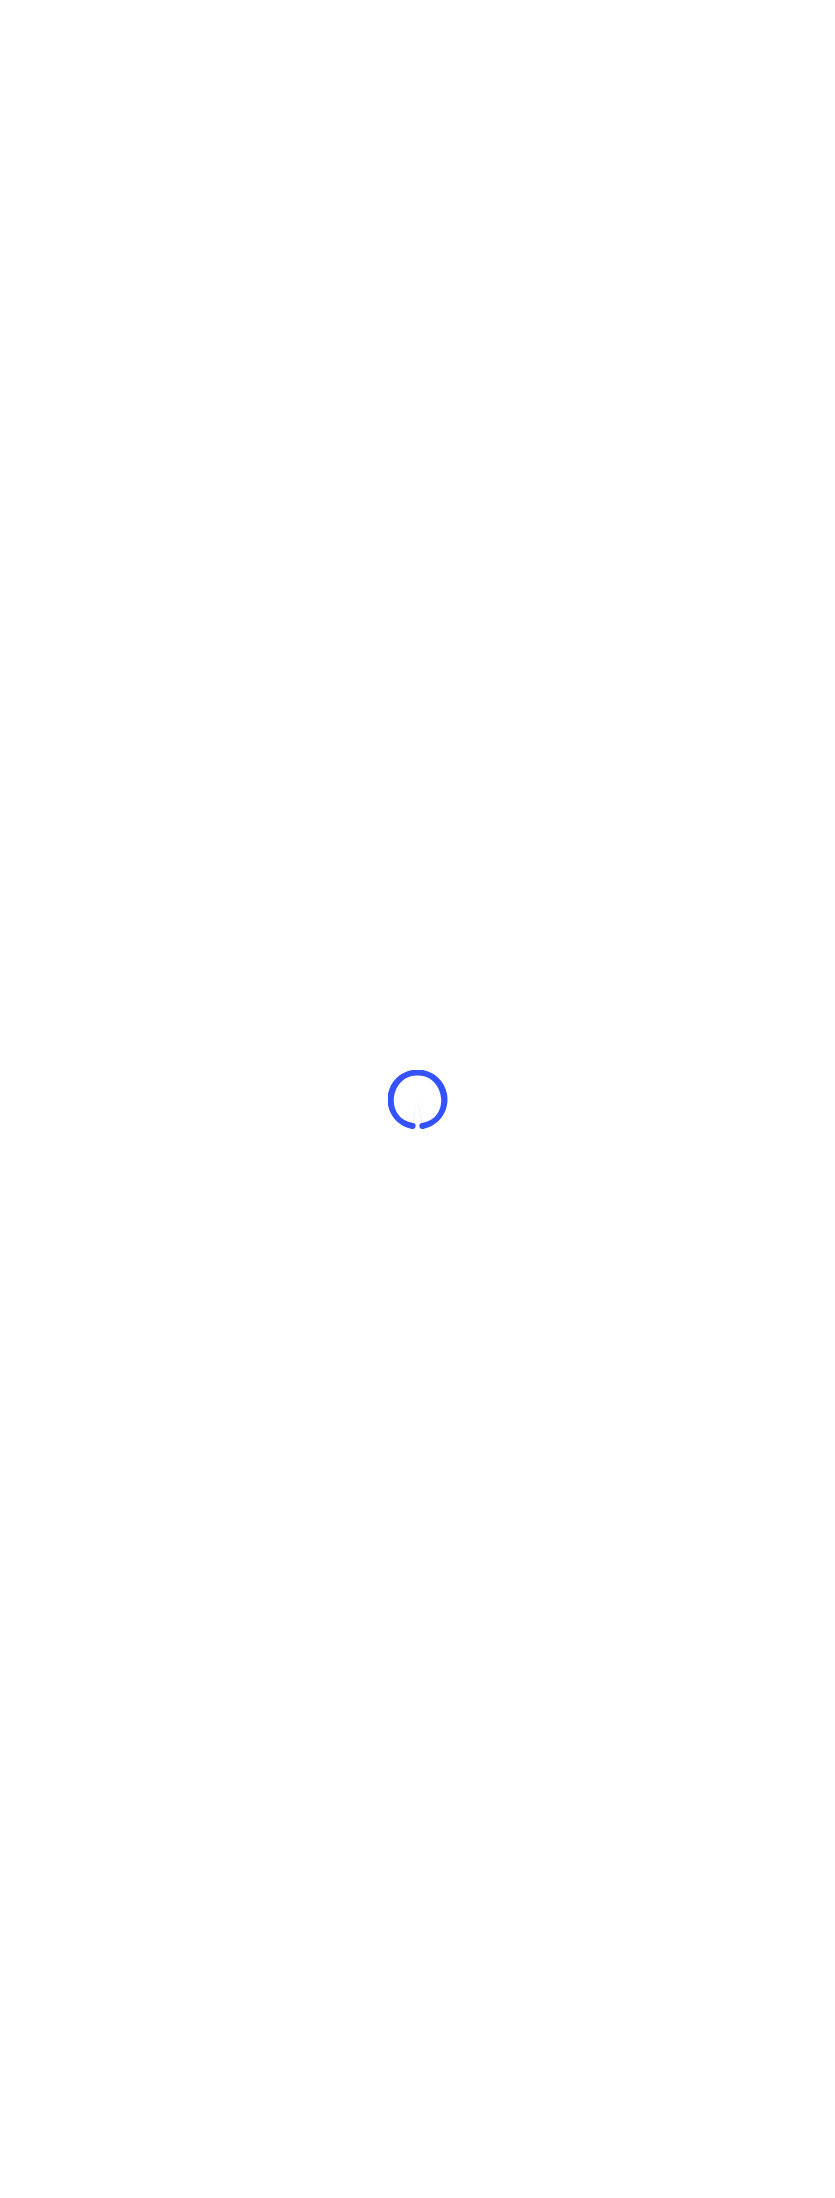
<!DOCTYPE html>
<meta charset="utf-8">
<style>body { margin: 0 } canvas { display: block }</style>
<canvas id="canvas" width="835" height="2198"></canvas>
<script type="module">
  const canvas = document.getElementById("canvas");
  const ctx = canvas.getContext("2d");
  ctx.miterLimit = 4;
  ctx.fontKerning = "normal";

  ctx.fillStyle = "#ffffff";
  ctx.fillRect(0, 0, 835, 2198);
  ctx.save();
  ctx.beginPath();
  ctx.rect(388, 1070, 30, 60);
  ctx.clip();
  ctx.fillStyle = "#3452ff";
  ctx.beginPath();
  ctx.moveTo(423, 1070);
  ctx.lineTo(412, 1129);
  ctx.bezierCurveTo(396, 1126, 385, 1111, 388, 1094);
  ctx.bezierCurveTo(391, 1078, 406, 1067, 423, 1070);
  ctx.closePath();
  ctx.moveTo(422, 1076);
  ctx.lineTo(413, 1123);
  ctx.bezierCurveTo(382, 1118, 391, 1070, 422, 1076);
  ctx.closePath();
  ctx.fill("evenodd");
  ctx.restore();
  ctx.fillStyle = "#3452ff";
  ctx.beginPath();
  ctx.moveTo(413.5, 1123);
  ctx.bezierCurveTo(417, 1124, 416, 1129.5, 412.5, 1129);
  ctx.bezierCurveTo(408.5, 1128.5, 409.5, 1122.5, 413.5, 1123);
  ctx.closePath();
  ctx.fill();
  ctx.save();
  ctx.beginPath();
  ctx.rect(418, 1070, 30, 60);
  ctx.clip();
  ctx.beginPath();
  ctx.moveTo(412, 1070);
  ctx.bezierCurveTo(429, 1067, 444, 1078, 447, 1094);
  ctx.bezierCurveTo(450, 1111, 439, 1126, 423, 1129);
  ctx.closePath();
  ctx.moveTo(413, 1076);
  ctx.bezierCurveTo(444, 1070, 453, 1118, 422, 1123);
  ctx.closePath();
  ctx.fill("evenodd");
  ctx.restore();
  ctx.beginPath();
  ctx.moveTo(421.5, 1123);
  ctx.bezierCurveTo(425.5, 1122.5, 426.5, 1128.5, 422.5, 1129);
  ctx.bezierCurveTo(419, 1129.5, 418, 1124, 421.5, 1123);
  ctx.closePath();
  ctx.fill();
</script>
